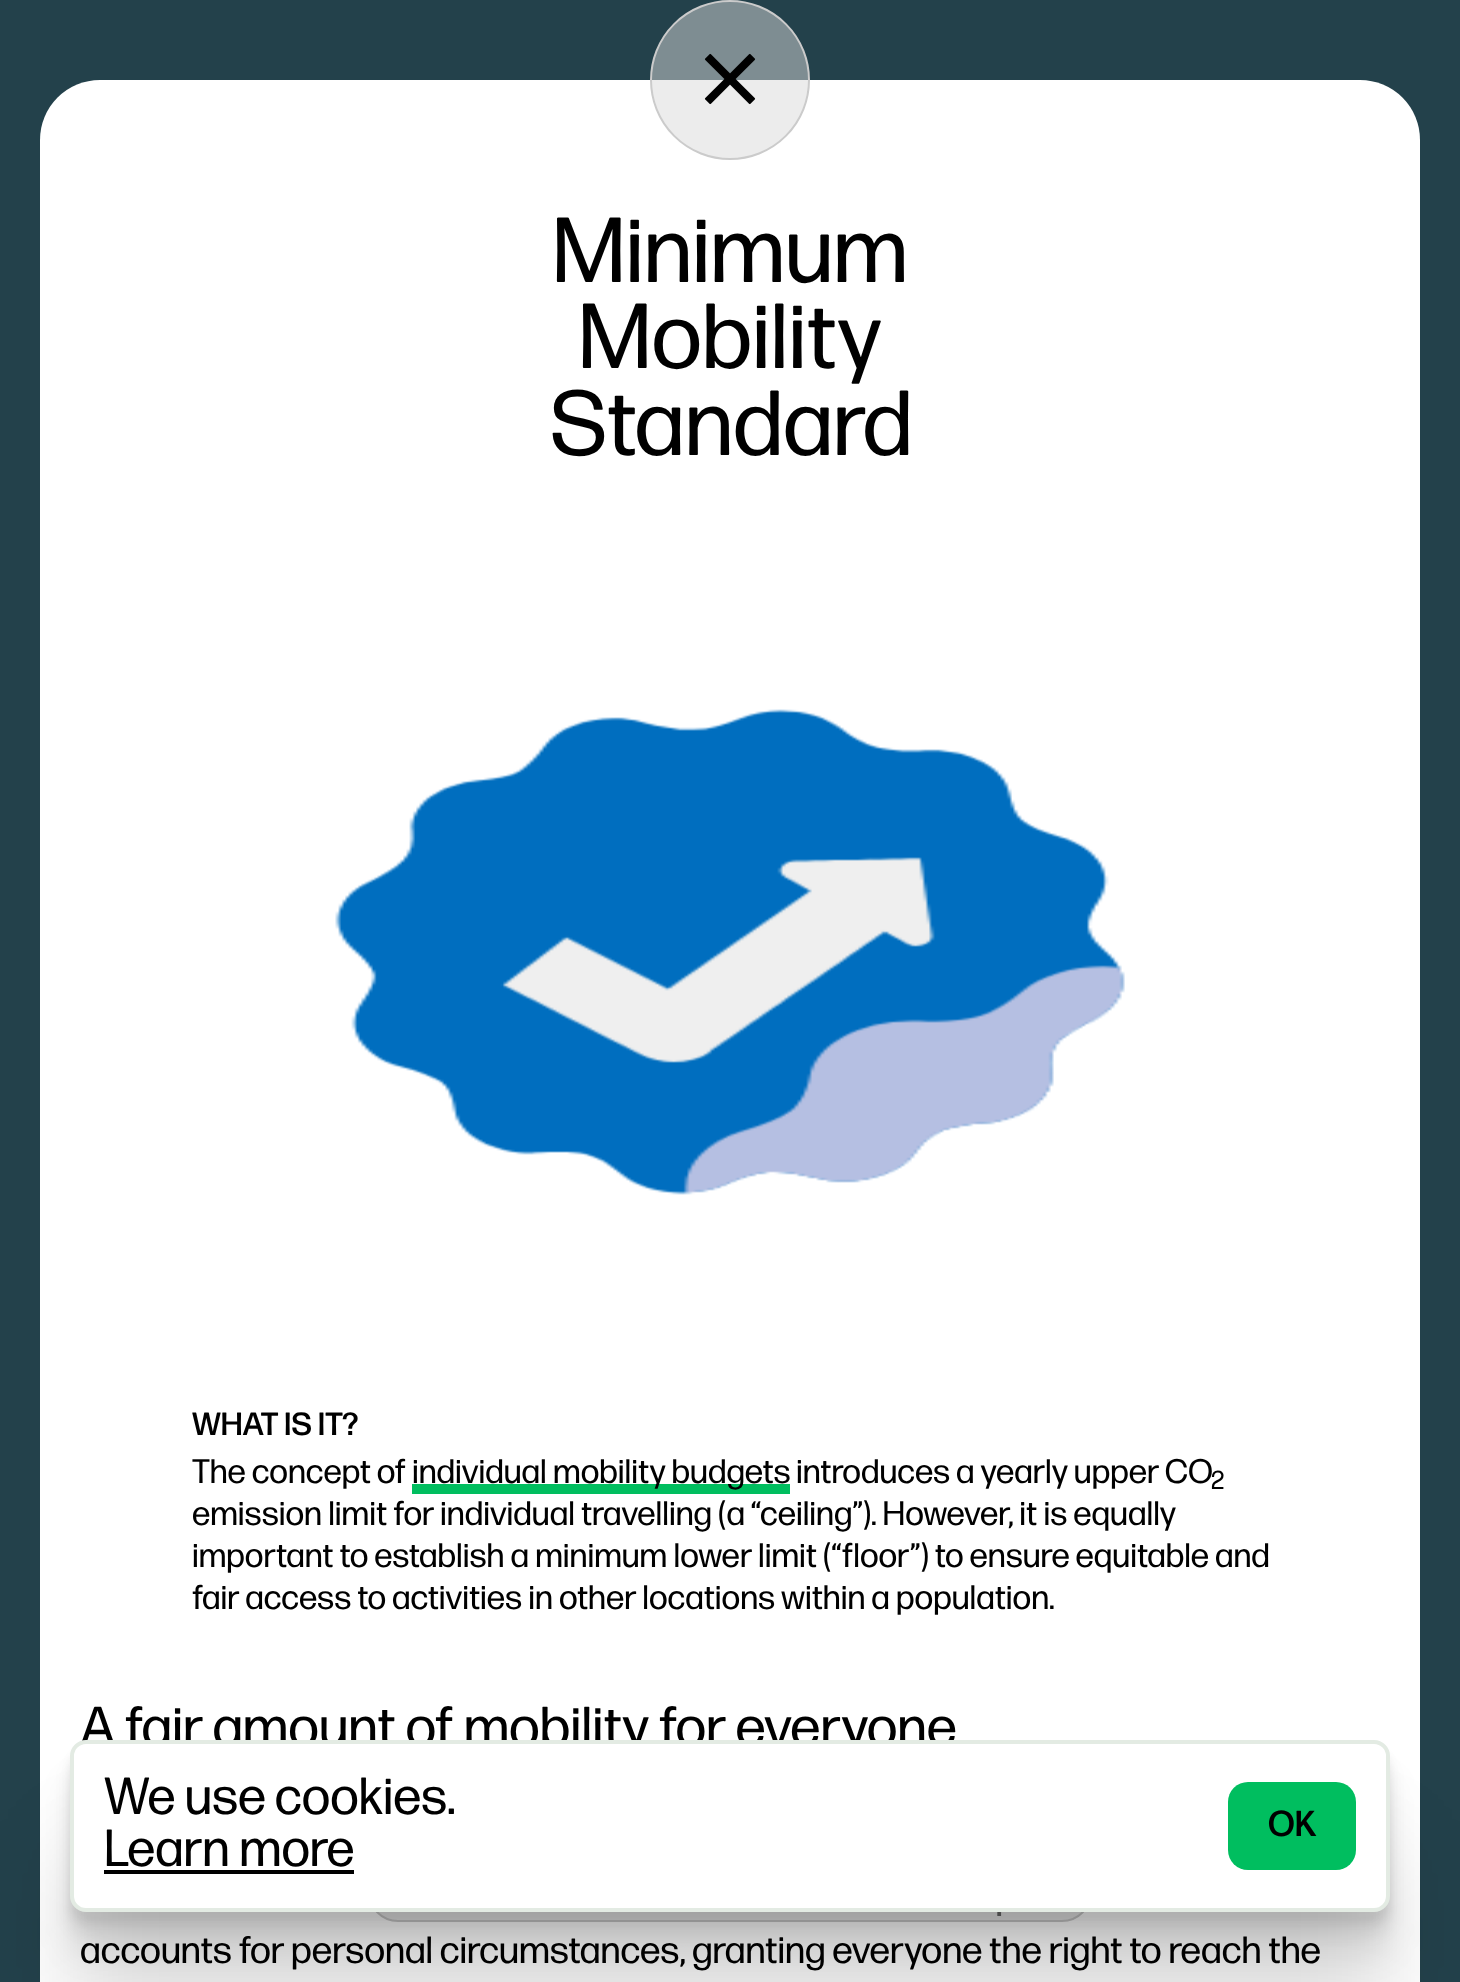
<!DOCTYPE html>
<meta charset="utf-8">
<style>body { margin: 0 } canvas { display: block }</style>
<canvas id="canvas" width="1460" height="1982"></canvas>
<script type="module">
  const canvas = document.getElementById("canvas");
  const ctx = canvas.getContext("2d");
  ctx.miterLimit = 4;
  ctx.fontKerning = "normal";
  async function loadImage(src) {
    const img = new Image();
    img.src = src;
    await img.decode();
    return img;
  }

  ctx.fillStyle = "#23414b";
  ctx.fillRect(0, 0, 1460, 1982);
  ctx.fillStyle = "#ffffff";
  ctx.beginPath();
  ctx.roundRect(40, 80, 1380, 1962, 60);
  ctx.fill();
  ctx.fillStyle = "rgba(217, 217, 217, 0.5)";
  ctx.beginPath();
  ctx.arc(730, 80, 79, 0, Math.PI * 2);
  ctx.fill();
  ctx.strokeStyle = "#cbcbcb";
  ctx.lineWidth = 2;
  ctx.stroke();
  ctx.drawImage(await loadImage("img1.png"), 704, 53, 52, 52);
  ctx.font = "92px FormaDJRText";
  ctx.fillStyle = "#000000";
  ctx.fillText("Minimum", 552, 282);
  ctx.fillText("Mobility", 578, 368);
  ctx.fillText("Standard", 550, 455);
  ctx.drawImage(await loadImage("img2.png"), 335, 709, 790, 486);
  ctx.font = "500 32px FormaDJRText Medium";
  ctx.fillText("WHAT IS IT?", 192, 1435);
  ctx.font = "34px FormaDJRText";
  ctx.fillText("The concept of", 192, 1483);
  ctx.fillStyle = "#00be5f";
  ctx.fillRect(412, 1484, 378, 10);
  ctx.fillStyle = "#000000";
  ctx.fillText("individual mobility budgets", 412, 1483);
  ctx.fillText("introduces a yearly upper CO", 796, 1483);
  ctx.font = "26px FormaDJRText";
  ctx.fillText("2", 1211, 1489);
  ctx.font = "34px FormaDJRText";
  ctx.fillText("emission limit for individual travelling (a “ceiling”). However, it is equally", 192, 1525);
  ctx.fillText("important to establish a minimum lower limit (“floor”) to ensure equitable and", 192, 1567);
  ctx.fillText("fair access to activities in other locations within a population.", 192, 1609);
  ctx.font = "56px FormaDJRText";
  ctx.fillText("A fair amount of mobility for everyone", 80, 1746);
  ctx.font = "38px FormaDJRText";
  ctx.fillText(".", 996, 1916);
  ctx.fillText("accounts for personal circumstances, granting everyone the right to reach the", 80, 1963);
  ctx.fillStyle = "rgba(217, 217, 217, 0.5)";
  ctx.beginPath();
  ctx.roundRect(369, 1813, 722, 108, 29);
  ctx.fill();
  ctx.stroke();
  ctx.fillStyle = "rgba(0, 0, 0, 0.13)";
  ctx.filter = "blur(45px)";
  ctx.beginPath();
  ctx.roundRect(70, 1848, 1320, 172, 16);
  ctx.fill();
  ctx.filter = "none";
  ctx.fillStyle = "rgba(0, 0, 0, 0.09)";
  ctx.filter = "blur(16.5px)";
  ctx.beginPath();
  ctx.roundRect(70, 1780, 1320, 172, 16);
  ctx.fill();
  ctx.filter = "none";
  ctx.fillStyle = "rgba(0, 0, 0, 0.07)";
  ctx.filter = "blur(8px)";
  ctx.beginPath();
  ctx.roundRect(70, 1760, 1320, 172, 16);
  ctx.fill();
  ctx.filter = "none";
  ctx.fillStyle = "rgba(0, 0, 0, 0.06)";
  ctx.filter = "blur(4px)";
  ctx.beginPath();
  ctx.roundRect(70, 1750, 1320, 172, 16);
  ctx.fill();
  ctx.filter = "none";
  ctx.fillStyle = "#ffffff";
  ctx.beginPath();
  ctx.roundRect(72, 1742, 1316, 168, 14);
  ctx.fill();
  ctx.strokeStyle = "#e3ebe3";
  ctx.lineWidth = 4;
  ctx.stroke();
  ctx.font = "52px FormaDJRText";
  ctx.fillStyle = "#000000";
  ctx.fillText("We use cookies.", 104, 1814);
  ctx.fillText("Learn more", 104, 1866);
  ctx.fillRect(104, 1870, 250, 4);
  ctx.fillStyle = "#00be5f";
  ctx.beginPath();
  ctx.roundRect(1228, 1782, 128, 88, 20);
  ctx.fill();
  ctx.font = "500 36px FormaDJRText Medium";
  ctx.fillStyle = "#000000";
  ctx.fillText("OK", 1268, 1836);
</script>
